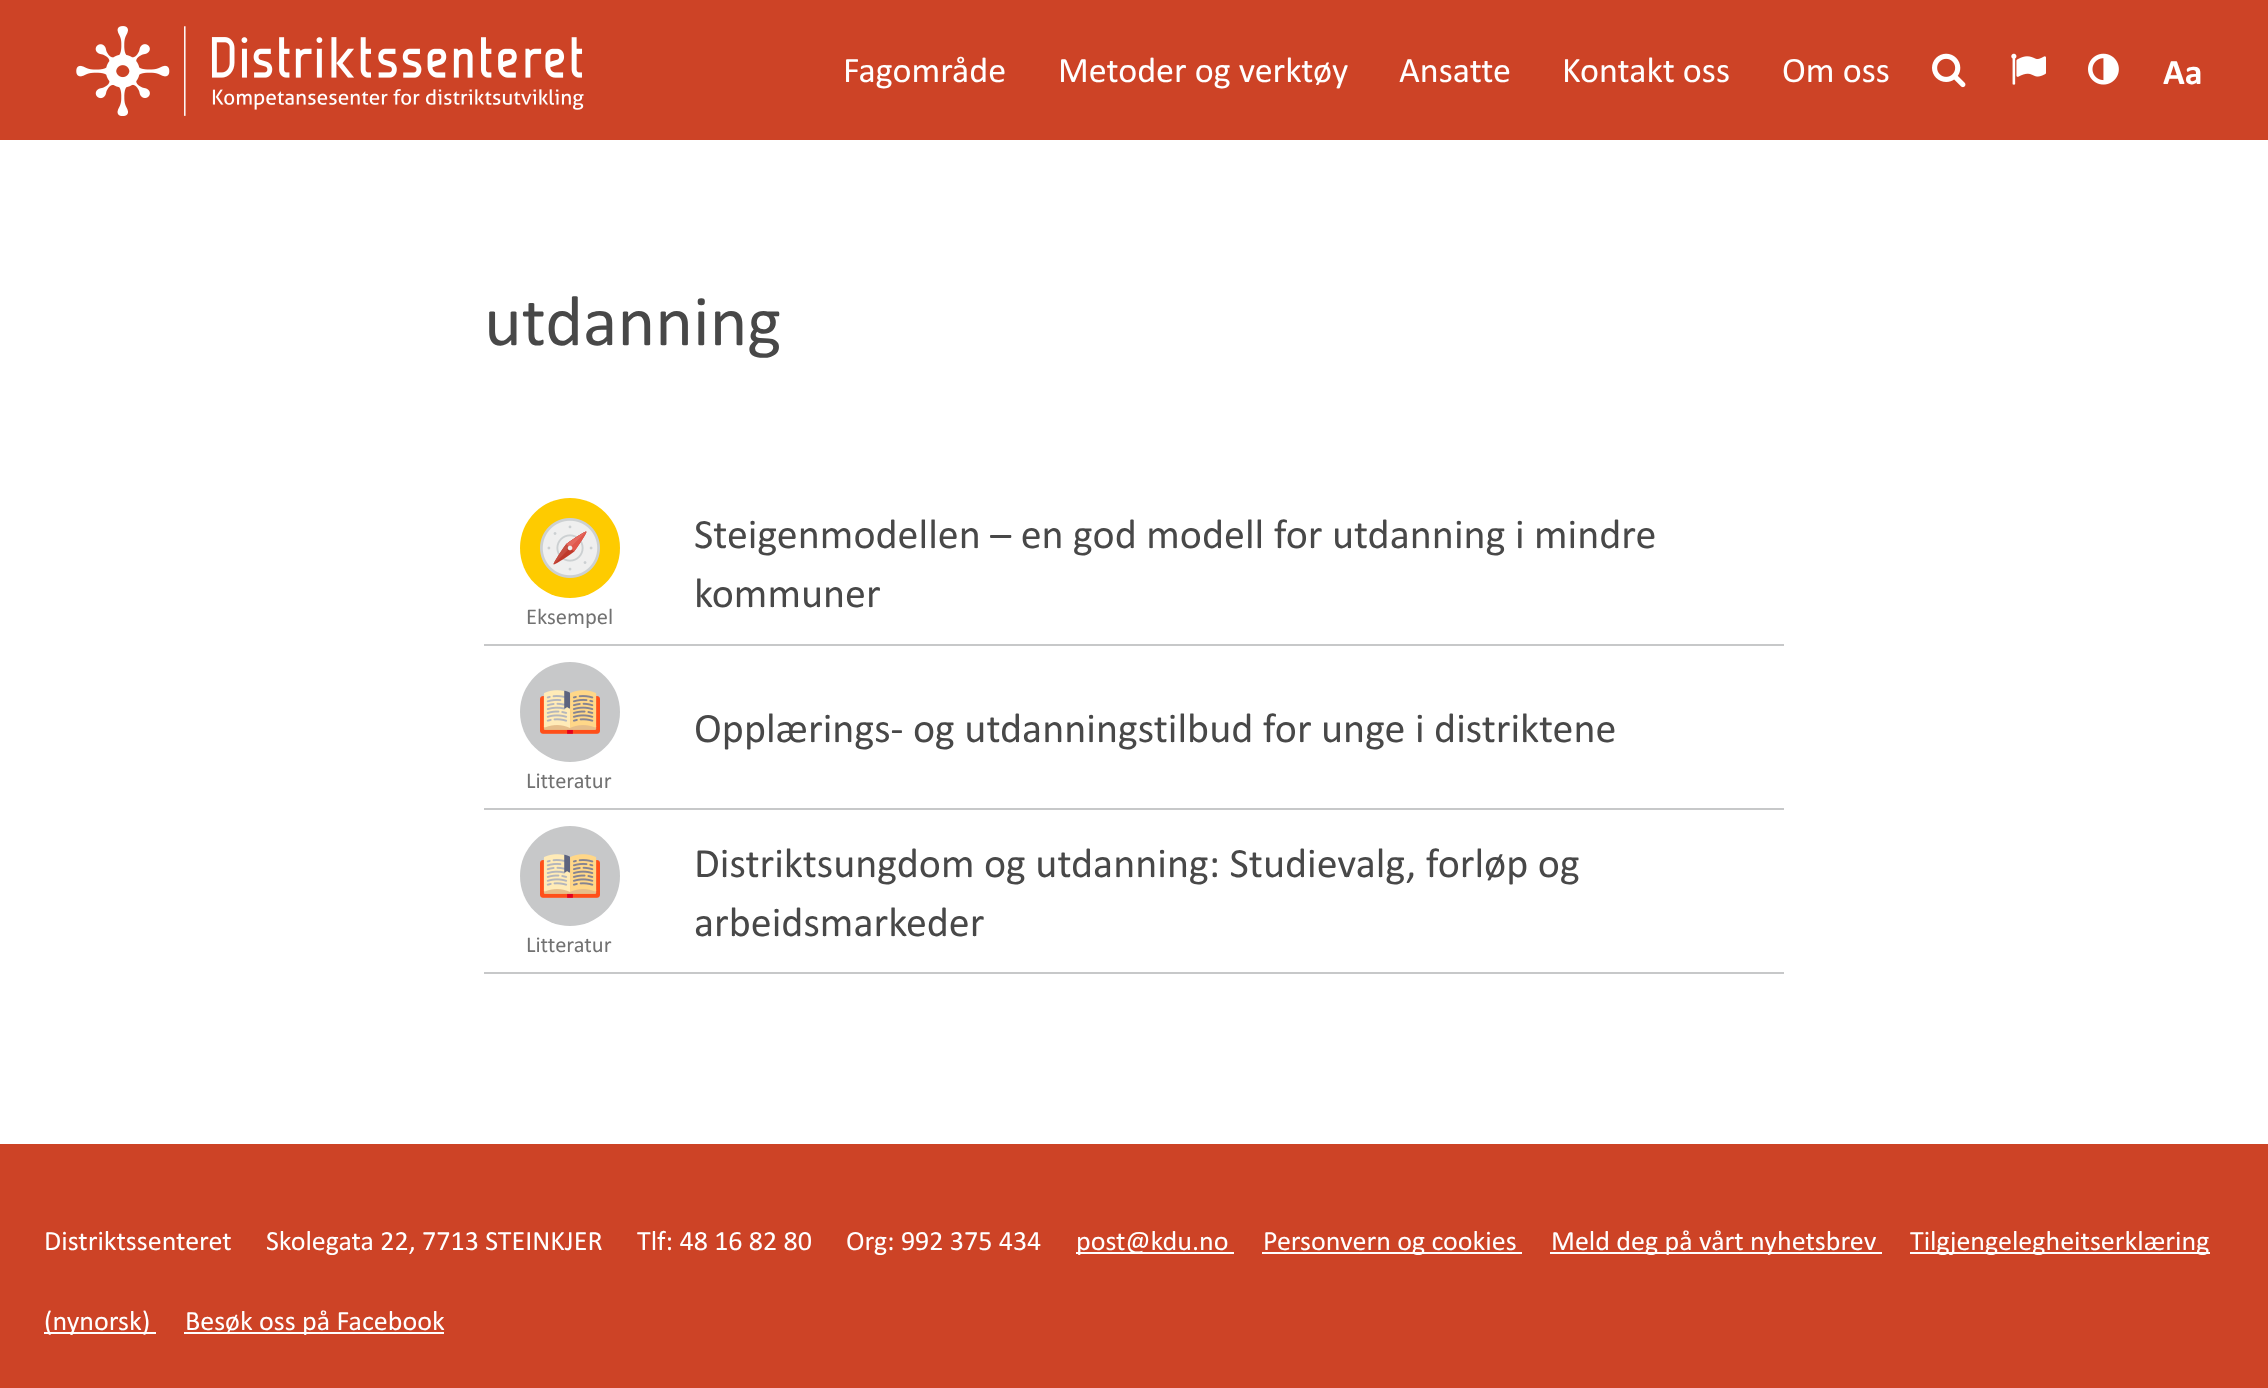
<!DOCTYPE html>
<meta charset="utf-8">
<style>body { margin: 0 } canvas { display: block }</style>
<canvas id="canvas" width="2268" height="1388"></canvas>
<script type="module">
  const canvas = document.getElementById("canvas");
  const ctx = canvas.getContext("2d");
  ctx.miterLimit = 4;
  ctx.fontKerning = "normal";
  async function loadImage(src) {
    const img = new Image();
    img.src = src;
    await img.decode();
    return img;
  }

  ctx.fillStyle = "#ffffff";
  ctx.fillRect(0, 0, 2268, 1388);
  ctx.fillStyle = "#cd4326";
  ctx.fillRect(0, 0, 2268, 140);
  ctx.drawImage(await loadImage("img1.png"), 76, 26, 508, 90);
  ctx.font = "36px Calibri";
  ctx.fillStyle = "#ffffff";
  ctx.fillText("Fagområde", 843, 82);
  ctx.fillText("Metoder og verktøy", 1058, 82);
  ctx.fillText("Ansatte", 1399, 82);
  ctx.fillText("Kontakt oss", 1562, 82);
  ctx.fillText("Om oss", 1782, 82);
  ctx.drawImage(await loadImage("img2.png"), 1932, 53, 34, 35);
  ctx.drawImage(await loadImage("img3.png"), 2011, 53, 35, 32);
  ctx.drawImage(await loadImage("img4.png"), 2088, 53, 31, 32);
  ctx.font = "bold 36px Calibri";
  ctx.fillText("Aa", 2163, 84);
  ctx.font = "72px Calibri";
  ctx.fillStyle = "#484848";
  ctx.fillText("utdanning", 484, 345);
  ctx.font = "42px Calibri";
  ctx.fillText("Steigenmodellen – en god modell for utdanning i mindre", 694, 548);
  ctx.fillText("kommuner", 694, 607);
  ctx.fillStyle = "#fecb00";
  ctx.beginPath();
  ctx.arc(570, 548, 50, 0, Math.PI * 2);
  ctx.fill();
  ctx.drawImage(await loadImage("img5.png"), 540, 518, 60, 60);
  ctx.font = "22.5px Calibri";
  ctx.fillStyle = "#727272";
  ctx.fillText("Eksempel", 526, 624);
  ctx.fillStyle = "#c7c8c9";
  ctx.fillRect(484, 644, 1300, 2);
  ctx.font = "42px Calibri";
  ctx.fillStyle = "#484848";
  ctx.fillText("Opplærings- og utdanningstilbud for unge i distriktene", 694, 742);
  ctx.fillStyle = "#c7c8c9";
  ctx.beginPath();
  ctx.arc(570, 712, 50, 0, Math.PI * 2);
  ctx.fill();
  ctx.drawImage(await loadImage("img6.png"), 540, 690, 60, 44);
  ctx.font = "22.5px Calibri";
  ctx.fillStyle = "#727272";
  ctx.fillText("Litteratur", 526, 788);
  ctx.fillStyle = "#c7c8c9";
  ctx.fillRect(484, 808, 1300, 2);
  ctx.font = "42px Calibri";
  ctx.fillStyle = "#484848";
  ctx.fillText("Distriktsungdom og utdanning: Studievalg, forløp og", 694, 877);
  ctx.fillText("arbeidsmarkeder", 694, 936);
  ctx.fillStyle = "#c7c8c9";
  ctx.beginPath();
  ctx.arc(570, 876, 50, 0, Math.PI * 2);
  ctx.fill();
  ctx.drawImage(await loadImage("img6.png"), 540, 854, 60, 44);
  ctx.font = "22.5px Calibri";
  ctx.fillStyle = "#727272";
  ctx.fillText("Litteratur", 526, 952);
  ctx.fillStyle = "#c7c8c9";
  ctx.fillRect(484, 972, 1300, 2);
  ctx.fillStyle = "#cd4326";
  ctx.fillRect(0, 1144, 2268, 244);
  ctx.font = "28px Calibri";
  ctx.fillStyle = "#ffffff";
  ctx.fillText("Distriktssenteret", 44, 1250);
  ctx.fillText("Skolegata 22, 7713 STEINKJER", 266, 1250);
  ctx.fillText("Tlf: 48 16 82 80", 637, 1250);
  ctx.fillText("Org: 992 375 434", 846, 1250);
  ctx.fillRect(1076, 1252, 158, 2);
  ctx.fillText("post@kdu.no", 1076, 1250);
  ctx.fillRect(1262, 1252, 260, 2);
  ctx.fillText("Personvern og cookies", 1263, 1250);
  ctx.fillRect(1550, 1252, 332, 2);
  ctx.fillText("Meld deg på vårt nyhetsbrev", 1551, 1250);
  ctx.fillRect(1910, 1252, 300, 2);
  ctx.fillText("Tilgjengelegheitserklæring", 1910, 1250);
  ctx.fillRect(44, 1332, 112, 2);
  ctx.fillText("(nynorsk)", 44, 1330);
  ctx.fillRect(184, 1332, 260, 2);
  ctx.fillText("Besøk oss på Facebook", 185, 1330);
</script>
